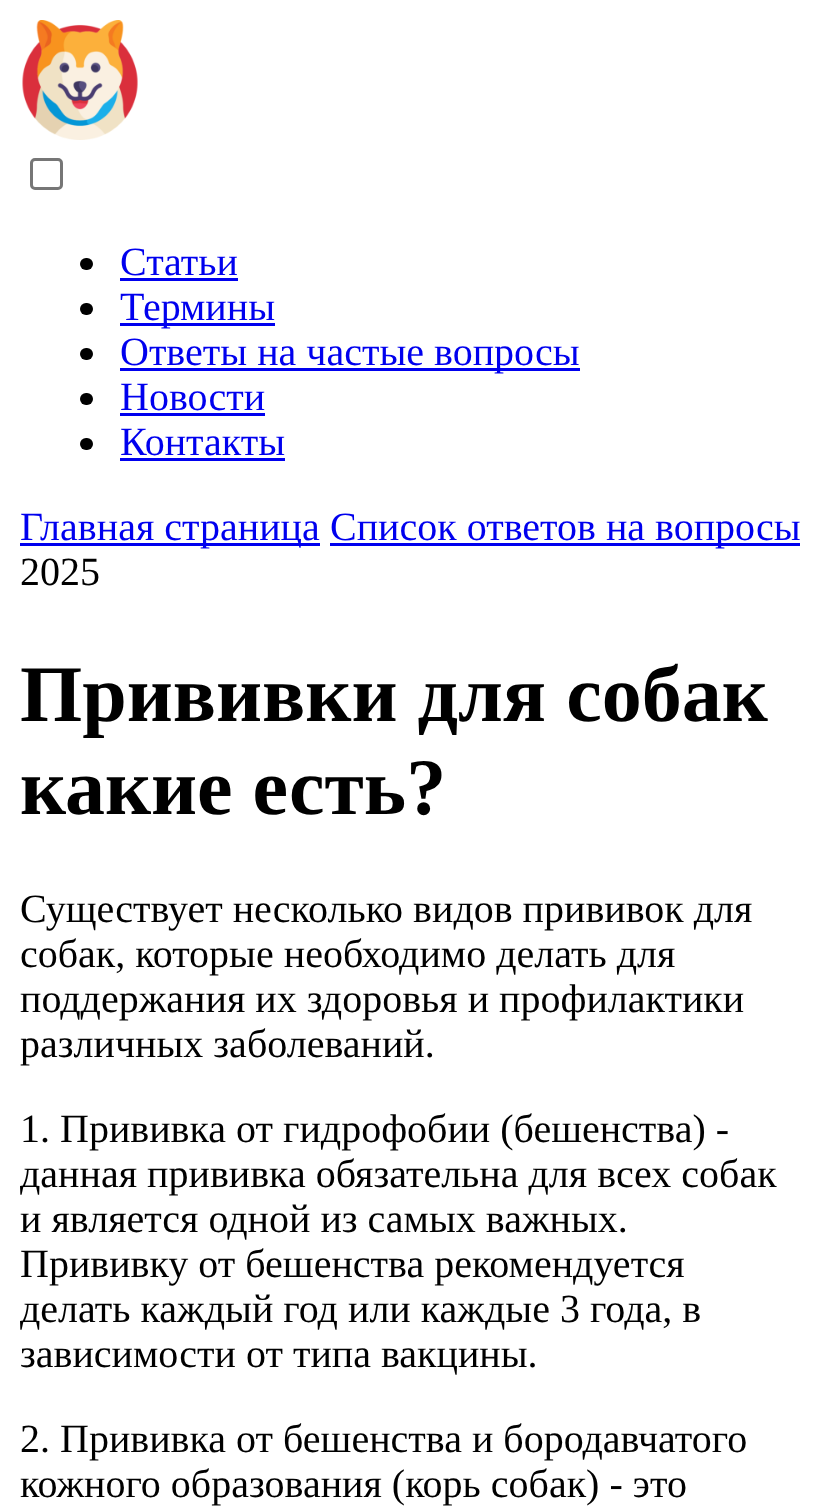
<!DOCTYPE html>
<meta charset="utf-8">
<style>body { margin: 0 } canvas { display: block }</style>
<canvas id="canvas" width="825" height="1507"></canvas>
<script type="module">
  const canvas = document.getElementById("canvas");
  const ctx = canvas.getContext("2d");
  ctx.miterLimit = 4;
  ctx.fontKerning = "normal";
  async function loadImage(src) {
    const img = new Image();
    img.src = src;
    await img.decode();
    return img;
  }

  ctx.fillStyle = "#ffffff";
  ctx.fillRect(0, 0, 825, 1507);
  ctx.drawImage(await loadImage("img1.png"), 22, 20, 116, 120);
  ctx.beginPath();
  ctx.roundRect(31.5, 159.5, 30, 29, 3.5);
  ctx.strokeStyle = "#767676";
  ctx.lineWidth = 3;
  ctx.stroke();
  ctx.fillStyle = "#000000";
  ctx.beginPath();
  ctx.roundRect(80, 258, 13, 12, 6);
  ctx.fill();
  ctx.font = "40px Liberation Serif";
  ctx.fillStyle = "#0000ee";
  ctx.fillText("Статьи", 120, 275);
  ctx.fillRect(120, 278, 118, 3);
  ctx.fillStyle = "#000000";
  ctx.beginPath();
  ctx.roundRect(80, 303, 13, 12, 6);
  ctx.fill();
  ctx.fillStyle = "#0000ee";
  ctx.fillRect(120, 323, 155, 3);
  ctx.fillText("Термины", 120, 320);
  ctx.fillStyle = "#000000";
  ctx.beginPath();
  ctx.roundRect(80, 348, 13, 12, 6);
  ctx.fill();
  ctx.fillStyle = "#0000ee";
  ctx.fillRect(120, 368, 460, 3);
  ctx.fillText("Ответы на частые вопросы", 120, 365);
  ctx.fillStyle = "#000000";
  ctx.beginPath();
  ctx.roundRect(80, 393, 13, 12, 6);
  ctx.fill();
  ctx.fillStyle = "#0000ee";
  ctx.fillText("Новости", 120, 410);
  ctx.fillRect(120, 413, 145, 3);
  ctx.fillStyle = "#000000";
  ctx.beginPath();
  ctx.roundRect(80, 438, 13, 12, 6);
  ctx.fill();
  ctx.fillStyle = "#0000ee";
  ctx.fillText("Контакты", 120, 455);
  ctx.fillRect(120, 458, 165, 3);
  ctx.fillRect(20, 543, 300, 3);
  ctx.fillText("Главная страница", 20, 540);
  ctx.fillRect(330, 543, 470, 3);
  ctx.fillText("Список ответов на вопросы", 330, 540);
  ctx.fillStyle = "#000000";
  ctx.fillText("2025", 20, 585);
  ctx.font = "bold 80px Liberation Serif";
  ctx.fillText("Прививки для собак", 20, 721);
  ctx.fillText("какие есть?", 20, 814);
  ctx.font = "40px Liberation Serif";
  ctx.fillText("Существует несколько видов прививок для", 20, 922);
  ctx.fillText("собак, которые необходимо делать для", 20, 967);
  ctx.fillText("поддержания их здоровья и профилактики", 20, 1012);
  ctx.fillText("различных заболеваний.", 20, 1057);
  ctx.fillText("1. Прививка от гидрофобии (бешенства) -", 20, 1142);
  ctx.fillText("данная прививка обязательна для всех собак", 20, 1187);
  ctx.fillText("и является одной из самых важных.", 20, 1232);
  ctx.fillText("Прививку от бешенства рекомендуется", 20, 1277);
  ctx.fillText("делать каждый год или каждые 3 года, в", 20, 1322);
  ctx.fillText("зависимости от типа вакцины.", 20, 1367);
  ctx.fillText("2. Прививка от бешенства и бородавчатого", 20, 1452);
  ctx.fillText("кожного образования (корь собак) - это", 20, 1497);
</script>
